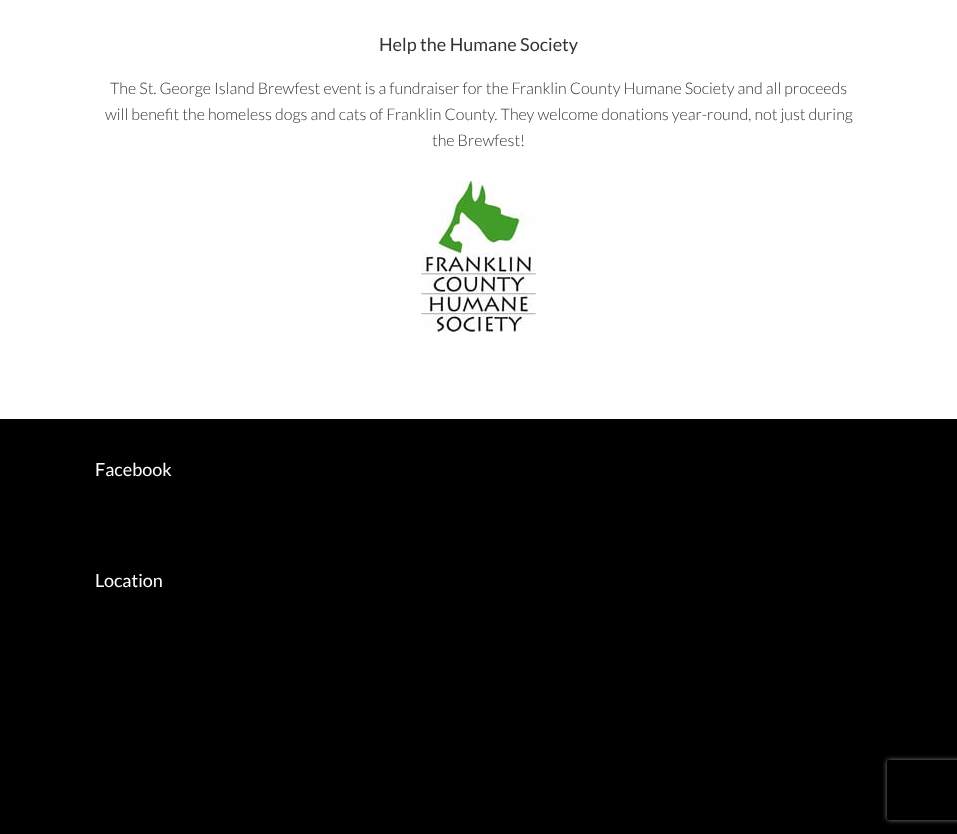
<!DOCTYPE html>
<meta charset="utf-8">
<style>body { margin: 0 } canvas { display: block }</style>
<canvas id="canvas" width="957" height="834"></canvas>
<script type="module">
  const canvas = document.getElementById("canvas");
  const ctx = canvas.getContext("2d");
  ctx.miterLimit = 4;
  ctx.fontKerning = "normal";
  async function loadImage(src) {
    const img = new Image();
    img.src = src;
    await img.decode();
    return img;
  }

  ctx.fillStyle = "#ffffff";
  ctx.fillRect(0, 0, 957, 834);
  ctx.font = "18px Lato";
  ctx.fillStyle = "#333333";
  ctx.fillText("Help the Humane Society", 379, 51);
  ctx.font = "300 16px Lato";
  ctx.fillText("The St. George Island Brewfest event is a fundraiser for the Franklin County Humane Society and all proceeds", 110, 94);
  ctx.fillText("will benefit the homeless dogs and cats of Franklin County. They welcome donations year-round, not just during", 105, 120);
  ctx.fillText("the Brewfest!", 432, 146);
  ctx.drawImage(await loadImage("img1.png"), 421, 181, 115, 151);
  ctx.fillStyle = "#000000";
  ctx.fillRect(0, 419, 957, 415);
  ctx.font = "18px Lato";
  ctx.fillStyle = "#ffffff";
  ctx.fillText("Facebook", 95, 476);
  ctx.fillText("Location", 95, 587);
  ctx.save();
  ctx.beginPath();
  ctx.moveTo(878, 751);
  ctx.lineTo(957, 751);
  ctx.lineTo(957, 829);
  ctx.lineTo(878, 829);
  ctx.closePath();
  ctx.moveTo(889, 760);
  ctx.lineTo(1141, 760);
  ctx.bezierCurveTo(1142, 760, 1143, 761, 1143, 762);
  ctx.lineTo(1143, 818);
  ctx.bezierCurveTo(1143, 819, 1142, 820, 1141, 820);
  ctx.lineTo(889, 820);
  ctx.bezierCurveTo(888, 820, 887, 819, 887, 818);
  ctx.lineTo(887, 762);
  ctx.bezierCurveTo(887, 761, 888, 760, 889, 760);
  ctx.closePath();
  ctx.clip("evenodd");
  ctx.fillStyle = "#808080";
  ctx.filter = "blur(2.5px)";
  ctx.beginPath();
  ctx.roundRect(887, 760, 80, 60, 2);
  ctx.fill();
  ctx.filter = "none";
  ctx.restore();
</script>
